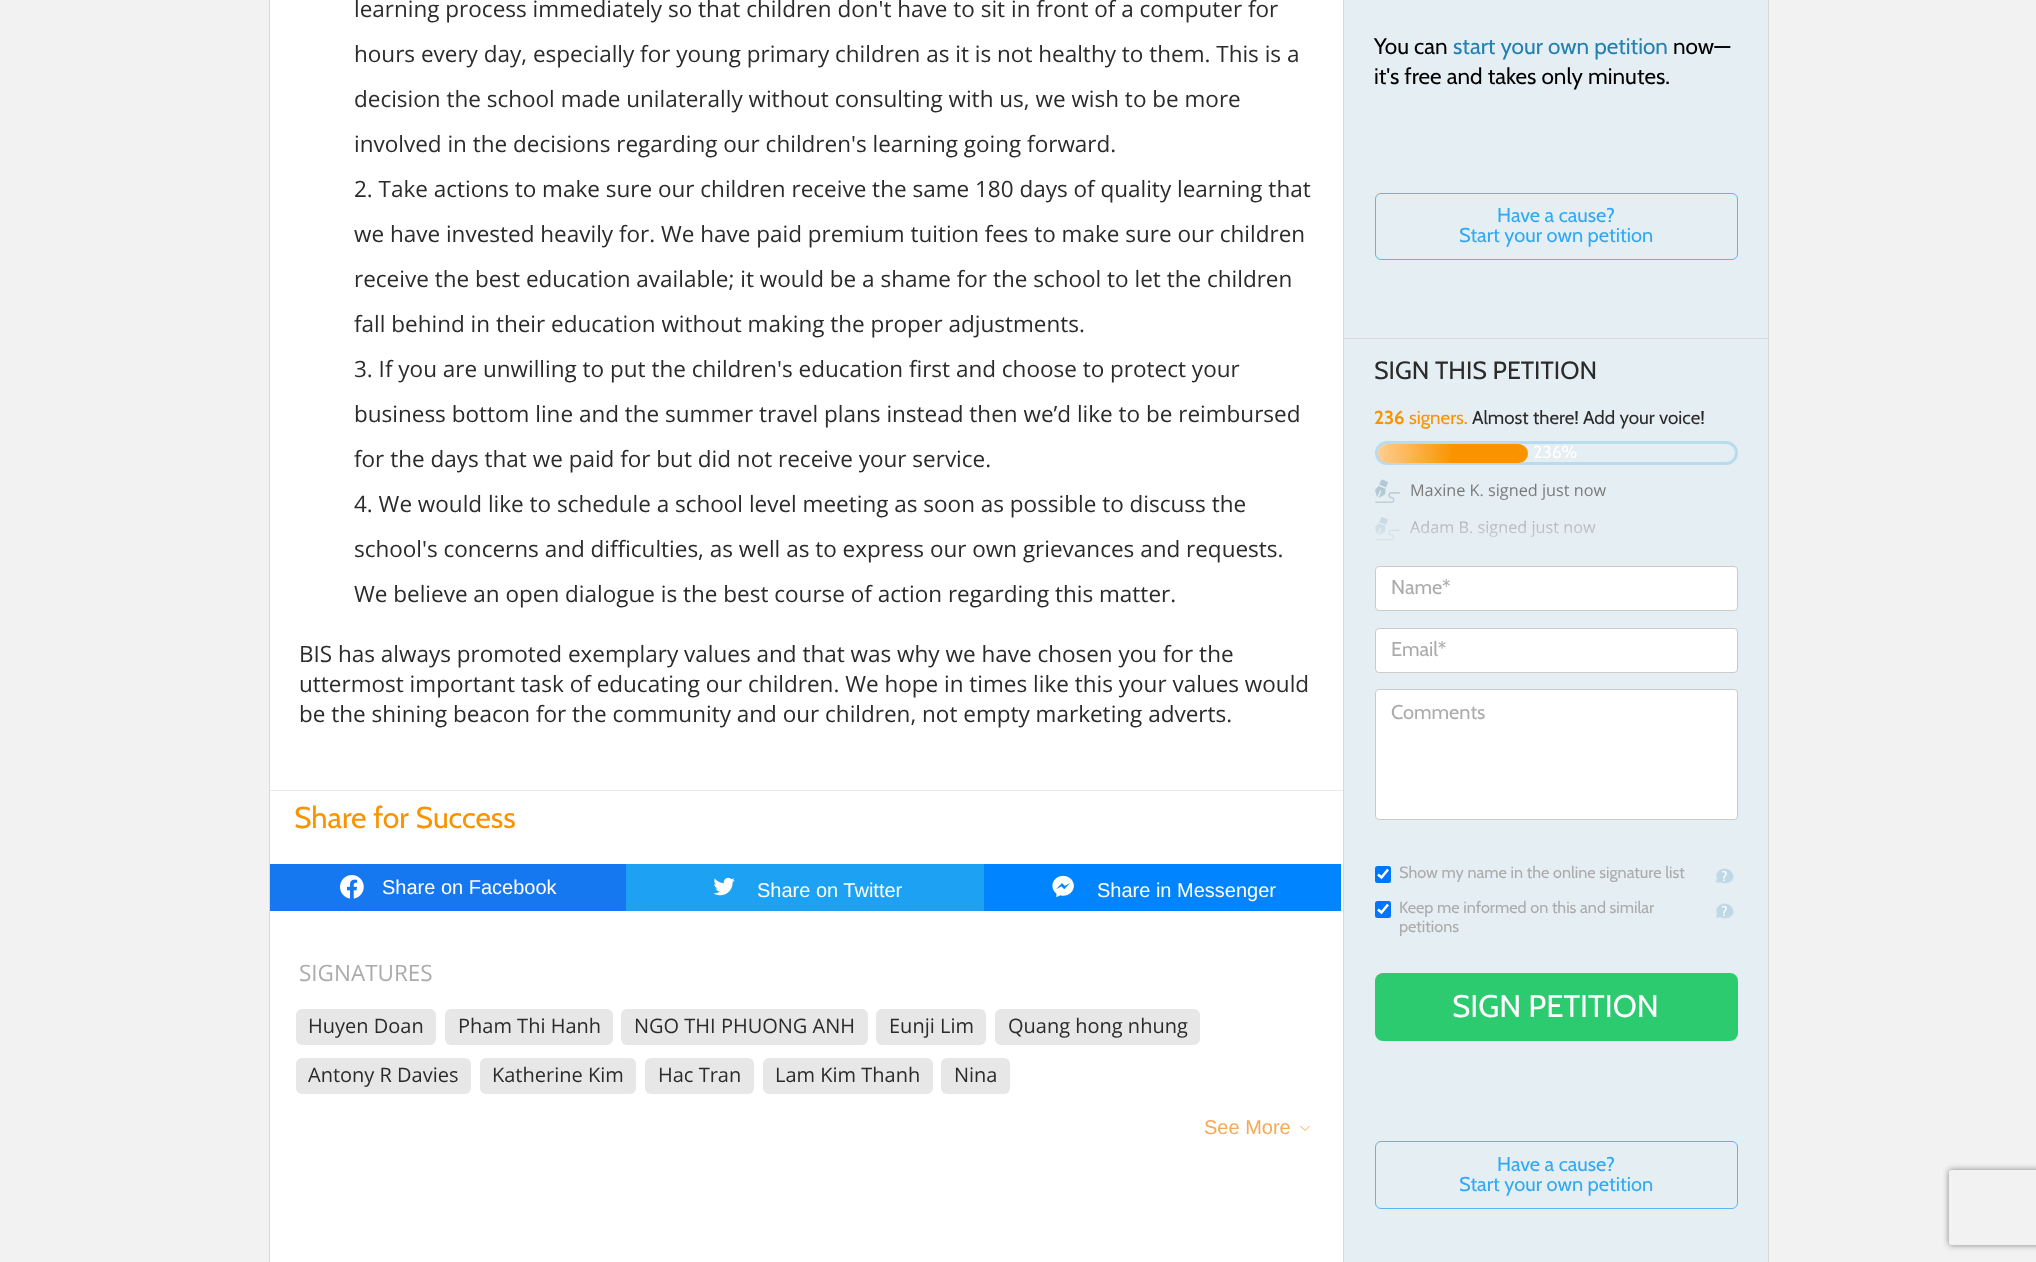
<!DOCTYPE html>
<meta charset="utf-8">
<style>body { margin: 0 } canvas { display: block }</style>
<canvas id="canvas" width="2036" height="1262"></canvas>
<script type="module">
  const canvas = document.getElementById("canvas");
  const ctx = canvas.getContext("2d");
  ctx.miterLimit = 4;
  ctx.fontKerning = "normal";
  async function loadImage(src) {
    const img = new Image();
    img.src = src;
    await img.decode();
    return img;
  }
  let gradient;

  ctx.fillStyle = "#f2f2f2";
  ctx.fillRect(0, 0, 2036, 1262);
  ctx.fillStyle = "#ffffff";
  ctx.fillRect(270, 0, 1073, 1262);
  ctx.strokeStyle = "#d8d8d8";
  ctx.strokeRect(269.5, -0.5, 1499, 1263);
  ctx.fillStyle = "#eaeaea";
  ctx.fillRect(270, 790, 1073, 1);
  ctx.font = "22.5px Open Sans";
  ctx.fillStyle = "#2b2b2b";
  ctx.fillText("learning process immediately so that children don't have to sit in front of a computer for", 354, 17);
  ctx.fillText("hours every day, especially for young primary children as it is not healthy to them. This is a", 354, 62);
  ctx.fillText("decision the school made unilaterally without consulting with us, we wish to be more", 354, 107);
  ctx.fillText("involved in the decisions regarding our children's learning going forward.", 354, 152);
  ctx.fillText("2. Take actions to make sure our children receive the same 180 days of quality learning that", 354, 197);
  ctx.fillText("we have invested heavily for. We have paid premium tuition fees to make sure our children", 354, 242);
  ctx.fillText("receive the best education available; it would be a shame for the school to let the children", 354, 287);
  ctx.fillText("fall behind in their education without making the proper adjustments.", 354, 332);
  ctx.fillText("3. If you are unwilling to put the children's education first and choose to protect your", 354, 377);
  ctx.fillText("business bottom line and the summer travel plans instead then we’d like to be reimbursed", 354, 422);
  ctx.fillText("for the days that we paid for but did not receive your service.", 354, 467);
  ctx.fillText("4. We would like to schedule a school level meeting as soon as possible to discuss the", 354, 512);
  ctx.fillText("school's concerns and difficulties, as well as to express our own grievances and requests.", 354, 557);
  ctx.fillText("We believe an open dialogue is the best course of action regarding this matter.", 354, 602);
  ctx.fillText("BIS has always promoted exemplary values and that was why we have chosen you for the", 299, 662);
  ctx.fillText("uttermost important task of educating our children. We hope in times like this your values would", 299, 692);
  ctx.fillText("be the shining beacon for the community and our children, not empty marketing adverts.", 299, 722);
  ctx.font = "30px Cabin";
  ctx.fillStyle = "#f99400";
  ctx.fillText("Share for Success", 294, 828);
  ctx.fillStyle = "#1678f1";
  ctx.fillRect(270, 864, 356, 47);
  ctx.drawImage(await loadImage("img1.png"), 340, 875, 24, 24);
  ctx.font = "20px Liberation Sans";
  ctx.fillStyle = "#ffffff";
  ctx.fillText("Share on Facebook", 382, 894);
  ctx.fillStyle = "#1da1f2";
  ctx.fillRect(626, 864, 358, 47);
  ctx.drawImage(await loadImage("img2.png"), 713, 877, 22, 19);
  ctx.fillStyle = "#ffffff";
  ctx.fillText("Share on Twitter", 757, 897);
  ctx.fillStyle = "#0084ff";
  ctx.fillRect(984, 864, 357, 47);
  ctx.drawImage(await loadImage("img3.png"), 1052, 875, 22, 23);
  ctx.fillStyle = "#ffffff";
  ctx.fillText("Share in Messenger", 1097, 897);
  ctx.font = "22.5px Open Sans";
  ctx.fillStyle = "#ababab";
  ctx.fillText("SIGNATURES", 299, 981);
  ctx.fillStyle = "#e7e7e7";
  ctx.beginPath();
  ctx.roundRect(296, 1009, 140, 36, 6);
  ctx.fill();
  ctx.font = "20px Open Sans";
  ctx.fillStyle = "#2b2b2b";
  ctx.fillText("Huyen Doan", 308, 1033);
  ctx.fillStyle = "#e7e7e7";
  ctx.beginPath();
  ctx.roundRect(445, 1009, 168, 36, 6);
  ctx.fill();
  ctx.fillStyle = "#2b2b2b";
  ctx.fillText("Pham Thi Hanh", 458, 1033);
  ctx.fillStyle = "#e7e7e7";
  ctx.beginPath();
  ctx.roundRect(621, 1009, 247, 36, 6);
  ctx.fill();
  ctx.fillStyle = "#2b2b2b";
  ctx.fillText("NGO THI PHUONG ANH", 634, 1033);
  ctx.fillStyle = "#e7e7e7";
  ctx.beginPath();
  ctx.roundRect(876, 1009, 110, 36, 6);
  ctx.fill();
  ctx.fillStyle = "#2b2b2b";
  ctx.fillText("Eunji Lim", 889, 1033);
  ctx.fillStyle = "#e7e7e7";
  ctx.beginPath();
  ctx.roundRect(995, 1009, 205, 36, 6);
  ctx.fill();
  ctx.fillStyle = "#2b2b2b";
  ctx.fillText("Quang hong nhung", 1008, 1033);
  ctx.fillStyle = "#e7e7e7";
  ctx.beginPath();
  ctx.roundRect(296, 1058, 175, 36, 6);
  ctx.fill();
  ctx.fillStyle = "#2b2b2b";
  ctx.fillText("Antony R Davies", 308, 1082);
  ctx.fillStyle = "#e7e7e7";
  ctx.beginPath();
  ctx.roundRect(480, 1058, 156, 36, 6);
  ctx.fill();
  ctx.fillStyle = "#2b2b2b";
  ctx.fillText("Katherine Kim", 492, 1082);
  ctx.fillStyle = "#e7e7e7";
  ctx.beginPath();
  ctx.roundRect(645, 1058, 109, 36, 6);
  ctx.fill();
  ctx.fillStyle = "#2b2b2b";
  ctx.fillText("Hac Tran", 658, 1082);
  ctx.fillStyle = "#e7e7e7";
  ctx.beginPath();
  ctx.roundRect(763, 1058, 170, 36, 6);
  ctx.fill();
  ctx.fillStyle = "#2b2b2b";
  ctx.fillText("Lam Kim Thanh", 775, 1082);
  ctx.fillStyle = "#e7e7e7";
  ctx.beginPath();
  ctx.roundRect(941, 1058, 69, 36, 6);
  ctx.fill();
  ctx.fillStyle = "#2b2b2b";
  ctx.fillText("Nina", 954, 1082);
  ctx.font = "20px Liberation Sans";
  ctx.fillStyle = "#f6a952";
  ctx.fillText("See More", 1204, 1134);
  ctx.beginPath();
  ctx.moveTo(1300, 1126);
  ctx.lineTo(1310, 1126);
  ctx.lineTo(1305, 1131);
  ctx.closePath();
  ctx.fill();
  ctx.fillStyle = "#ffffff";
  ctx.beginPath();
  ctx.moveTo(1301, 1126);
  ctx.lineTo(1309, 1126);
  ctx.lineTo(1305, 1130);
  ctx.closePath();
  ctx.fill();
  ctx.fillStyle = "#e5eef3";
  ctx.fillRect(1344, 0, 424, 1262);
  ctx.fillStyle = "#d8d8d8";
  ctx.fillRect(1343, 0, 1, 1262);
  ctx.fillRect(1344, 338, 425, 1);
  ctx.font = "22.5px Cabin";
  ctx.fillStyle = "#000000";
  ctx.fillText("You can", 1374, 54);
  ctx.fillStyle = "#2380b1";
  ctx.fillText("start your own petition", 1453, 54);
  ctx.fillStyle = "#000000";
  ctx.fillText("now—", 1673, 54);
  ctx.fillText("it's free and takes only minutes.", 1374, 84);
  ctx.beginPath();
  ctx.roundRect(1375.5, 193.5, 362, 66, 5.5);
  ctx.strokeStyle = "#59b8f2";
  ctx.stroke();
  ctx.font = "20px Cabin";
  ctx.fillStyle = "#31a9f2";
  ctx.fillText("Have a cause?", 1497, 222);
  ctx.fillText("Start your own petition", 1459, 242);
  ctx.font = "25px Cabin";
  ctx.fillStyle = "#2b2b2b";
  ctx.fillText("SIGN THIS PETITION", 1374, 379);
  ctx.font = "bold 18.75px Cabin";
  ctx.fillStyle = "#f99400";
  ctx.fillText("236", 1374, 424);
  ctx.font = "18.75px Cabin";
  ctx.fillText("signers.", 1409, 424);
  ctx.fillStyle = "#2b2b2b";
  ctx.fillText("Almost there! Add your voice!", 1472, 424);
  ctx.beginPath();
  ctx.roundRect(1376.5, 442.5, 360, 21, 10.5);
  ctx.strokeStyle = "#b8dcee";
  ctx.lineWidth = 3;
  ctx.stroke();
  gradient = ctx.createLinearGradient(1378, 453, 1528, 453);
  gradient.addColorStop(0, "#ffce90");
  gradient.addColorStop(0.5, "#f99400");
  ctx.fillStyle = gradient;
  ctx.beginPath();
  ctx.roundRect(1378, 444, 150, 19, 9.5);
  ctx.fill();
  ctx.font = "17.5px Cabin";
  ctx.fillStyle = "#ffffff";
  ctx.fillText("236%", 1533, 458);
  ctx.drawImage(await loadImage("img4.png"), 1375, 479, 25, 24);
  ctx.font = "16.25px Open Sans";
  ctx.fillStyle = "#787878";
  ctx.fillText("Maxine K. signed just now", 1410, 496);
  ctx.drawImage(await loadImage("img5.png"), 1375, 517, 25, 24);
  ctx.fillText("Adam B. signed just now", 1410, 533);
  gradient = ctx.createLinearGradient(1556, 491, 1556, 554);
  gradient.addColorStop(0, "rgba(229, 238, 243, 0)");
  gradient.addColorStop(1, "#e5eef3");
  ctx.fillStyle = gradient;
  ctx.fillRect(1375, 492, 229, 49);
  ctx.fillStyle = "#ffffff";
  ctx.beginPath();
  ctx.roundRect(1375.5, 566.5, 362, 44, 3.5);
  ctx.fill();
  ctx.strokeStyle = "#cbcbcb";
  ctx.lineWidth = 1;
  ctx.stroke();
  ctx.font = "20px Cabin";
  ctx.fillStyle = "#ababab";
  ctx.fillText("Name*", 1391, 594);
  ctx.fillStyle = "#ffffff";
  ctx.beginPath();
  ctx.roundRect(1375.5, 628.5, 362, 44, 3.5);
  ctx.fill();
  ctx.stroke();
  ctx.fillStyle = "#ababab";
  ctx.fillText("Email*", 1391, 656);
  ctx.fillStyle = "#ffffff";
  ctx.beginPath();
  ctx.roundRect(1375.5, 689.5, 362, 130, 3.5);
  ctx.fill();
  ctx.stroke();
  ctx.fillStyle = "#ababab";
  ctx.fillText("Comments", 1391, 719);
  ctx.fillStyle = "#0075ff";
  ctx.beginPath();
  ctx.roundRect(1375, 866, 16, 17, 2.5);
  ctx.fill();
  ctx.beginPath();
  ctx.moveTo(1378, 874.5);
  ctx.lineTo(1381.5, 877.5);
  ctx.lineTo(1388, 869.5);
  ctx.strokeStyle = "#ffffff";
  ctx.lineWidth = 2.6;
  ctx.stroke();
  ctx.font = "16.25px Cabin";
  ctx.fillStyle = "#ababab";
  ctx.fillText("Show my name in the online signature list", 1399, 878);
  ctx.drawImage(await loadImage("img6.png"), 1716, 868, 18, 16);
  ctx.font = "14px Cabin";
  ctx.fillStyle = "#ffffff";
  ctx.fillText("?", 1721, 881);
  ctx.fillStyle = "#0075ff";
  ctx.beginPath();
  ctx.roundRect(1375, 901, 16, 17, 2.5);
  ctx.fill();
  ctx.beginPath();
  ctx.moveTo(1378, 909.5);
  ctx.lineTo(1381.5, 912.5);
  ctx.lineTo(1388, 904.5);
  ctx.stroke();
  ctx.font = "16.25px Cabin";
  ctx.fillStyle = "#ababab";
  ctx.fillText("Keep me informed on this and similar", 1399, 913);
  ctx.fillText("petitions", 1399, 932);
  ctx.drawImage(await loadImage("img6.png"), 1716, 903, 18, 16);
  ctx.font = "14px Cabin";
  ctx.fillStyle = "#ffffff";
  ctx.fillText("?", 1721, 916);
  ctx.fillStyle = "#2ccb6f";
  ctx.beginPath();
  ctx.roundRect(1375, 973, 363, 68, 8);
  ctx.fill();
  ctx.font = "31.25px Cabin";
  ctx.fillStyle = "#ffffff";
  ctx.fillText("SIGN PETITION", 1452, 1017);
  ctx.beginPath();
  ctx.roundRect(1375.5, 1141.5, 362, 67, 5.5);
  ctx.strokeStyle = "#59b8f2";
  ctx.lineWidth = 1;
  ctx.stroke();
  ctx.font = "20px Cabin";
  ctx.fillStyle = "#31a9f2";
  ctx.fillText("Have a cause?", 1497, 1171);
  ctx.fillText("Start your own petition", 1459, 1191);
  ctx.save();
  ctx.beginPath();
  ctx.moveTo(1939, 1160);
  ctx.lineTo(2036, 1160);
  ctx.lineTo(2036, 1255);
  ctx.lineTo(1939, 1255);
  ctx.closePath();
  ctx.moveTo(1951.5, 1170);
  ctx.lineTo(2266.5, 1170);
  ctx.bezierCurveTo(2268, 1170, 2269, 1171, 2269, 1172.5);
  ctx.lineTo(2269, 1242.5);
  ctx.bezierCurveTo(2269, 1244, 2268, 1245, 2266.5, 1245);
  ctx.lineTo(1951.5, 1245);
  ctx.bezierCurveTo(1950, 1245, 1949, 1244, 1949, 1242.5);
  ctx.lineTo(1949, 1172.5);
  ctx.bezierCurveTo(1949, 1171, 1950, 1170, 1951.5, 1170);
  ctx.closePath();
  ctx.clip("evenodd");
  ctx.fillStyle = "#808080";
  ctx.filter = "blur(3px)";
  ctx.beginPath();
  ctx.roundRect(1949, 1170, 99, 75, 2.5);
  ctx.fill();
  ctx.filter = "none";
  ctx.restore();
</script>
